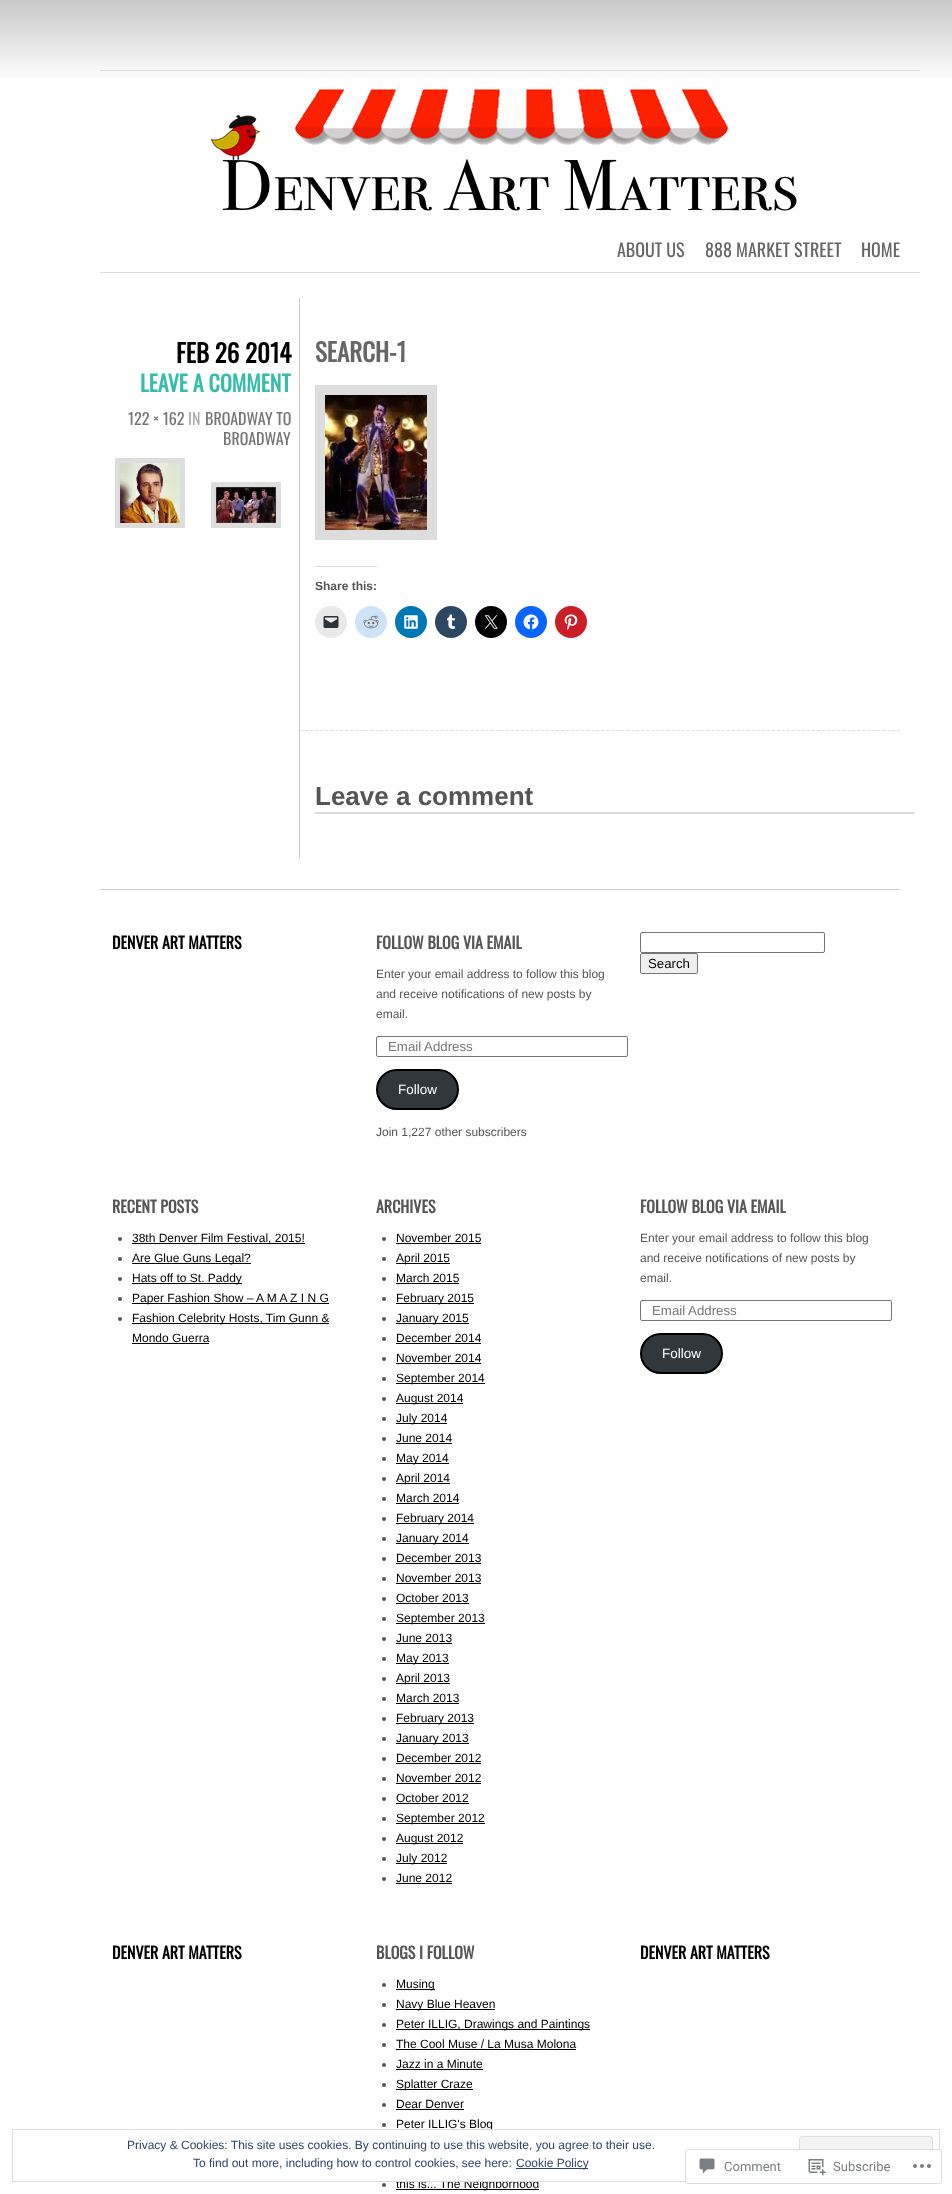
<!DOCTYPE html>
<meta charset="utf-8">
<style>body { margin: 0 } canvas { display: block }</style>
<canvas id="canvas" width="952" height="2194"></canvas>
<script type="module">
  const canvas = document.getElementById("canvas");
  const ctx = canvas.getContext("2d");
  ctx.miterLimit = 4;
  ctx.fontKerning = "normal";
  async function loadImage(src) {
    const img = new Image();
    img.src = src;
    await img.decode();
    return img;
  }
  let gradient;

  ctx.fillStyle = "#ffffff";
  ctx.fillRect(0, 0, 952, 2194);
  gradient = ctx.createLinearGradient(500, 0, 500, 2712);
  gradient.addColorStop(0, "#c8c8c8");
  gradient.addColorStop(0.03, "#ffffff");
  ctx.fillStyle = gradient;
  ctx.fillRect(0, 0, 952, 78);
  ctx.fillStyle = "#dddddd";
  ctx.fillRect(100, 70, 820, 1);
  ctx.fillRect(100, 272, 820, 1);
  ctx.drawImage(await loadImage("img1.png"), 211, 89, 586, 122);
  ctx.font = "18px Oswald";
  ctx.fillStyle = "#666666";
  ctx.fillText("ABOUT US", 617, 257);
  ctx.fillText("888 MARKET STREET", 705, 257);
  ctx.fillText("HOME", 861, 257);
  ctx.fillStyle = "#cccccc";
  ctx.fillRect(299, 298, 1, 561);
  ctx.font = "bold 25px Oswald";
  ctx.fillStyle = "#000000";
  ctx.fillText("FEB 26 2014", 176, 363);
  ctx.font = "bold 22px Oswald";
  ctx.fillStyle = "#36bcab";
  ctx.fillText("LEAVE A COMMENT", 140, 392);
  ctx.font = "16px Oswald";
  ctx.fillStyle = "#757575";
  ctx.fillText("122 × 162", 128, 425);
  ctx.fillStyle = "#aaaaaa";
  ctx.fillText("IN", 188, 425);
  ctx.fillStyle = "#757575";
  ctx.fillText("BROADWAY TO", 205, 425);
  ctx.fillText("BROADWAY", 223, 445);
  ctx.strokeStyle = "#dddddd";
  ctx.lineWidth = 5;
  ctx.strokeRect(117.5, 460.5, 65, 65);
  ctx.drawImage(await loadImage("img2.png"), 120, 463, 60, 60);
  ctx.strokeRect(213.5, 484.5, 65, 41);
  ctx.drawImage(await loadImage("img3.png"), 216, 487, 60, 36);
  ctx.beginPath();
  ctx.moveTo(300, 730.5);
  ctx.lineTo(900, 730.5);
  ctx.lineWidth = 1;
  ctx.setLineDash([3, 2.02]);
  ctx.stroke();
  ctx.font = "bold 25px Oswald";
  ctx.fillStyle = "#666666";
  ctx.fillText("SEARCH-1", 315, 362);
  ctx.lineWidth = 10;
  ctx.setLineDash([]);
  ctx.strokeRect(320, 390, 112, 145);
  ctx.drawImage(await loadImage("img4.png"), 325, 395, 102, 135);
  ctx.fillStyle = "#dcdcde";
  ctx.fillRect(315, 566, 62, 1);
  ctx.font = "bold 12px Liberation Sans";
  ctx.fillStyle = "#555555";
  ctx.fillText("Share this:", 315, 590);
  ctx.fillStyle = "#e9e9e9";
  ctx.beginPath();
  ctx.arc(331, 622, 16, 0, Math.PI * 2);
  ctx.fill();
  ctx.drawImage(await loadImage("img5.png"), 323, 616, 16, 12);
  ctx.fillStyle = "#cee3f8";
  ctx.beginPath();
  ctx.arc(371, 622, 16, 0, Math.PI * 2);
  ctx.fill();
  ctx.drawImage(await loadImage("img6.png"), 363, 615, 16, 14);
  ctx.fillStyle = "#0077b5";
  ctx.beginPath();
  ctx.arc(411, 622, 16, 0, Math.PI * 2);
  ctx.fill();
  ctx.drawImage(await loadImage("img7.png"), 404, 615, 14, 14);
  ctx.fillStyle = "#2c4762";
  ctx.beginPath();
  ctx.arc(451, 622, 16, 0, Math.PI * 2);
  ctx.fill();
  ctx.drawImage(await loadImage("img8.png"), 446, 614, 10, 15);
  ctx.fillStyle = "#000000";
  ctx.beginPath();
  ctx.arc(491, 622, 16, 0, Math.PI * 2);
  ctx.fill();
  ctx.drawImage(await loadImage("img9.png"), 484, 615, 14, 14);
  ctx.fillStyle = "#0866ff";
  ctx.beginPath();
  ctx.arc(531, 622, 16, 0, Math.PI * 2);
  ctx.fill();
  ctx.drawImage(await loadImage("img10.png"), 523, 614, 16, 16);
  ctx.fillStyle = "#ca1f27";
  ctx.beginPath();
  ctx.arc(571, 622, 16, 0, Math.PI * 2);
  ctx.fill();
  ctx.drawImage(await loadImage("img11.png"), 564, 614, 14, 16);
  ctx.font = "bold 26px Liberation Sans";
  ctx.fillStyle = "#555555";
  ctx.fillText("Leave a comment", 315, 805);
  ctx.fillStyle = "#dcdcde";
  ctx.fillRect(315, 812, 600, 2);
  ctx.fillStyle = "#cccccc";
  ctx.fillRect(100, 889, 800, 1);
  ctx.font = "bold 16px Oswald";
  ctx.fillStyle = "#000000";
  ctx.fillText("DENVER ART MATTERS", 112, 949);
  ctx.fillStyle = "#555555";
  ctx.fillText("FOLLOW BLOG VIA EMAIL", 376, 949);
  ctx.font = "12px Liberation Sans";
  ctx.fillText("Enter your email address to follow this blog", 376, 978);
  ctx.fillText("and receive notifications of new posts by", 376, 998);
  ctx.fillText("email.", 376, 1018);
  ctx.beginPath();
  ctx.roundRect(376.5, 1036.5, 251, 20, 1.5);
  ctx.strokeStyle = "#767676";
  ctx.lineWidth = 1;
  ctx.stroke();
  ctx.font = "13.25px Liberation Sans";
  ctx.fillStyle = "#757575";
  ctx.fillText("Email Address", 388, 1051);
  ctx.fillStyle = "#32373c";
  ctx.beginPath();
  ctx.roundRect(377, 1070, 81, 39, 19.5);
  ctx.fill();
  ctx.strokeStyle = "#000000";
  ctx.lineWidth = 2;
  ctx.stroke();
  ctx.font = "13.5px Liberation Sans";
  ctx.fillStyle = "#ffffff";
  ctx.fillText("Follow", 398, 1094);
  ctx.font = "12px Liberation Sans";
  ctx.fillStyle = "#555555";
  ctx.fillText("Join 1,227 other subscribers", 376, 1136);
  ctx.beginPath();
  ctx.roundRect(640.5, 932.5, 184, 20, 1.5);
  ctx.strokeStyle = "#767676";
  ctx.lineWidth = 1;
  ctx.stroke();
  ctx.fillStyle = "#efefef";
  ctx.beginPath();
  ctx.roundRect(640.5, 953.5, 57, 20, 1.5);
  ctx.fill();
  ctx.stroke();
  ctx.font = "13.25px Liberation Sans";
  ctx.fillStyle = "#000000";
  ctx.fillText("Search", 648, 968);
  ctx.font = "bold 16px Oswald";
  ctx.fillStyle = "#555555";
  ctx.fillText("RECENT POSTS", 112, 1213);
  ctx.beginPath();
  ctx.arc(120, 1239, 2, 0, Math.PI * 2);
  ctx.fill();
  ctx.fillStyle = "#000000";
  ctx.fillRect(132, 1243, 173, 1);
  ctx.font = "12px Liberation Sans";
  ctx.fillText("38th Denver Film Festival, 2015!", 132, 1242);
  ctx.fillStyle = "#555555";
  ctx.beginPath();
  ctx.arc(120, 1259, 2, 0, Math.PI * 2);
  ctx.fill();
  ctx.fillStyle = "#000000";
  ctx.fillRect(132, 1263, 119, 1);
  ctx.fillText("Are Glue Guns Legal?", 132, 1262);
  ctx.fillStyle = "#555555";
  ctx.beginPath();
  ctx.arc(120, 1279, 2, 0, Math.PI * 2);
  ctx.fill();
  ctx.fillStyle = "#000000";
  ctx.fillRect(132, 1283, 110, 1);
  ctx.fillText("Hats off to St. Paddy", 132, 1282);
  ctx.fillStyle = "#555555";
  ctx.beginPath();
  ctx.arc(120, 1299, 2, 0, Math.PI * 2);
  ctx.fill();
  ctx.fillStyle = "#000000";
  ctx.fillRect(132, 1303, 197, 1);
  ctx.fillText("Paper Fashion Show – A M A Z I N G", 132, 1302);
  ctx.fillStyle = "#555555";
  ctx.beginPath();
  ctx.arc(120, 1319, 2, 0, Math.PI * 2);
  ctx.fill();
  ctx.fillStyle = "#000000";
  ctx.fillRect(132, 1323, 197, 1);
  ctx.fillText("Fashion Celebrity Hosts, Tim Gunn &", 132, 1322);
  ctx.fillText("Mondo Guerra", 132, 1342);
  ctx.fillRect(132, 1343, 77, 1);
  ctx.font = "bold 16px Oswald";
  ctx.fillStyle = "#555555";
  ctx.fillText("ARCHIVES", 376, 1213);
  ctx.beginPath();
  ctx.arc(384, 1239, 2, 0, Math.PI * 2);
  ctx.fill();
  ctx.font = "12px Liberation Sans";
  ctx.fillStyle = "#000000";
  ctx.fillText("November 2015", 396, 1242);
  ctx.fillRect(396, 1243, 85, 1);
  ctx.fillStyle = "#555555";
  ctx.beginPath();
  ctx.arc(384, 1259, 2, 0, Math.PI * 2);
  ctx.fill();
  ctx.fillStyle = "#000000";
  ctx.fillRect(396, 1263, 54, 1);
  ctx.fillText("April 2015", 396, 1262);
  ctx.fillStyle = "#555555";
  ctx.beginPath();
  ctx.arc(384, 1279, 2, 0, Math.PI * 2);
  ctx.fill();
  ctx.fillStyle = "#000000";
  ctx.fillText("March 2015", 396, 1282);
  ctx.fillRect(396, 1283, 63, 1);
  ctx.fillStyle = "#555555";
  ctx.beginPath();
  ctx.arc(384, 1299, 2, 0, Math.PI * 2);
  ctx.fill();
  ctx.fillStyle = "#000000";
  ctx.fillRect(396, 1303, 78, 1);
  ctx.fillText("February 2015", 396, 1302);
  ctx.fillStyle = "#555555";
  ctx.beginPath();
  ctx.arc(384, 1319, 2, 0, Math.PI * 2);
  ctx.fill();
  ctx.fillStyle = "#000000";
  ctx.fillRect(396, 1323, 73, 1);
  ctx.fillText("January 2015", 396, 1322);
  ctx.fillStyle = "#555555";
  ctx.beginPath();
  ctx.arc(384, 1339, 2, 0, Math.PI * 2);
  ctx.fill();
  ctx.fillStyle = "#000000";
  ctx.fillText("December 2014", 396, 1342);
  ctx.fillRect(396, 1343, 85, 1);
  ctx.fillStyle = "#555555";
  ctx.beginPath();
  ctx.arc(384, 1359, 2, 0, Math.PI * 2);
  ctx.fill();
  ctx.fillStyle = "#000000";
  ctx.fillText("November 2014", 396, 1362);
  ctx.fillRect(396, 1363, 85, 1);
  ctx.fillStyle = "#555555";
  ctx.beginPath();
  ctx.arc(384, 1379, 2, 0, Math.PI * 2);
  ctx.fill();
  ctx.fillStyle = "#000000";
  ctx.fillRect(396, 1383, 89, 1);
  ctx.fillText("September 2014", 396, 1382);
  ctx.fillStyle = "#555555";
  ctx.beginPath();
  ctx.arc(384, 1399, 2, 0, Math.PI * 2);
  ctx.fill();
  ctx.fillStyle = "#000000";
  ctx.fillRect(396, 1403, 67, 1);
  ctx.fillText("August 2014", 396, 1402);
  ctx.fillStyle = "#555555";
  ctx.beginPath();
  ctx.arc(384, 1419, 2, 0, Math.PI * 2);
  ctx.fill();
  ctx.fillStyle = "#000000";
  ctx.fillRect(396, 1423, 51, 1);
  ctx.fillText("July 2014", 396, 1422);
  ctx.fillStyle = "#555555";
  ctx.beginPath();
  ctx.arc(384, 1439, 2, 0, Math.PI * 2);
  ctx.fill();
  ctx.fillStyle = "#000000";
  ctx.fillText("June 2014", 396, 1442);
  ctx.fillRect(396, 1443, 56, 1);
  ctx.fillStyle = "#555555";
  ctx.beginPath();
  ctx.arc(384, 1459, 2, 0, Math.PI * 2);
  ctx.fill();
  ctx.fillStyle = "#000000";
  ctx.fillRect(396, 1463, 53, 1);
  ctx.fillText("May 2014", 396, 1462);
  ctx.fillStyle = "#555555";
  ctx.beginPath();
  ctx.arc(384, 1479, 2, 0, Math.PI * 2);
  ctx.fill();
  ctx.fillStyle = "#000000";
  ctx.fillRect(396, 1483, 54, 1);
  ctx.fillText("April 2014", 396, 1482);
  ctx.fillStyle = "#555555";
  ctx.beginPath();
  ctx.arc(384, 1499, 2, 0, Math.PI * 2);
  ctx.fill();
  ctx.fillStyle = "#000000";
  ctx.fillText("March 2014", 396, 1502);
  ctx.fillRect(396, 1503, 63, 1);
  ctx.fillStyle = "#555555";
  ctx.beginPath();
  ctx.arc(384, 1519, 2, 0, Math.PI * 2);
  ctx.fill();
  ctx.fillStyle = "#000000";
  ctx.fillRect(396, 1523, 78, 1);
  ctx.fillText("February 2014", 396, 1522);
  ctx.fillStyle = "#555555";
  ctx.beginPath();
  ctx.arc(384, 1539, 2, 0, Math.PI * 2);
  ctx.fill();
  ctx.fillStyle = "#000000";
  ctx.fillRect(396, 1543, 73, 1);
  ctx.fillText("January 2014", 396, 1542);
  ctx.fillStyle = "#555555";
  ctx.beginPath();
  ctx.arc(384, 1559, 2, 0, Math.PI * 2);
  ctx.fill();
  ctx.fillStyle = "#000000";
  ctx.fillText("December 2013", 396, 1562);
  ctx.fillRect(396, 1563, 85, 1);
  ctx.fillStyle = "#555555";
  ctx.beginPath();
  ctx.arc(384, 1579, 2, 0, Math.PI * 2);
  ctx.fill();
  ctx.fillStyle = "#000000";
  ctx.fillText("November 2013", 396, 1582);
  ctx.fillRect(396, 1583, 85, 1);
  ctx.fillStyle = "#555555";
  ctx.beginPath();
  ctx.arc(384, 1599, 2, 0, Math.PI * 2);
  ctx.fill();
  ctx.fillStyle = "#000000";
  ctx.fillText("October 2013", 396, 1602);
  ctx.fillRect(396, 1603, 73, 1);
  ctx.fillStyle = "#555555";
  ctx.beginPath();
  ctx.arc(384, 1619, 2, 0, Math.PI * 2);
  ctx.fill();
  ctx.fillStyle = "#000000";
  ctx.fillRect(396, 1623, 89, 1);
  ctx.fillText("September 2013", 396, 1622);
  ctx.fillStyle = "#555555";
  ctx.beginPath();
  ctx.arc(384, 1639, 2, 0, Math.PI * 2);
  ctx.fill();
  ctx.fillStyle = "#000000";
  ctx.fillText("June 2013", 396, 1642);
  ctx.fillRect(396, 1643, 56, 1);
  ctx.fillStyle = "#555555";
  ctx.beginPath();
  ctx.arc(384, 1659, 2, 0, Math.PI * 2);
  ctx.fill();
  ctx.fillStyle = "#000000";
  ctx.fillRect(396, 1663, 53, 1);
  ctx.fillText("May 2013", 396, 1662);
  ctx.fillStyle = "#555555";
  ctx.beginPath();
  ctx.arc(384, 1679, 2, 0, Math.PI * 2);
  ctx.fill();
  ctx.fillStyle = "#000000";
  ctx.fillRect(396, 1683, 54, 1);
  ctx.fillText("April 2013", 396, 1682);
  ctx.fillStyle = "#555555";
  ctx.beginPath();
  ctx.arc(384, 1699, 2, 0, Math.PI * 2);
  ctx.fill();
  ctx.fillStyle = "#000000";
  ctx.fillText("March 2013", 396, 1702);
  ctx.fillRect(396, 1703, 63, 1);
  ctx.fillStyle = "#555555";
  ctx.beginPath();
  ctx.arc(384, 1719, 2, 0, Math.PI * 2);
  ctx.fill();
  ctx.fillStyle = "#000000";
  ctx.fillRect(396, 1723, 78, 1);
  ctx.fillText("February 2013", 396, 1722);
  ctx.fillStyle = "#555555";
  ctx.beginPath();
  ctx.arc(384, 1739, 2, 0, Math.PI * 2);
  ctx.fill();
  ctx.fillStyle = "#000000";
  ctx.fillRect(396, 1743, 73, 1);
  ctx.fillText("January 2013", 396, 1742);
  ctx.fillStyle = "#555555";
  ctx.beginPath();
  ctx.arc(384, 1759, 2, 0, Math.PI * 2);
  ctx.fill();
  ctx.fillStyle = "#000000";
  ctx.fillText("December 2012", 396, 1762);
  ctx.fillRect(396, 1763, 85, 1);
  ctx.fillStyle = "#555555";
  ctx.beginPath();
  ctx.arc(384, 1779, 2, 0, Math.PI * 2);
  ctx.fill();
  ctx.fillStyle = "#000000";
  ctx.fillText("November 2012", 396, 1782);
  ctx.fillRect(396, 1783, 85, 1);
  ctx.fillStyle = "#555555";
  ctx.beginPath();
  ctx.arc(384, 1799, 2, 0, Math.PI * 2);
  ctx.fill();
  ctx.fillStyle = "#000000";
  ctx.fillText("October 2012", 396, 1802);
  ctx.fillRect(396, 1803, 73, 1);
  ctx.fillStyle = "#555555";
  ctx.beginPath();
  ctx.arc(384, 1819, 2, 0, Math.PI * 2);
  ctx.fill();
  ctx.fillStyle = "#000000";
  ctx.fillRect(396, 1823, 89, 1);
  ctx.fillText("September 2012", 396, 1822);
  ctx.fillStyle = "#555555";
  ctx.beginPath();
  ctx.arc(384, 1839, 2, 0, Math.PI * 2);
  ctx.fill();
  ctx.fillStyle = "#000000";
  ctx.fillRect(396, 1843, 67, 1);
  ctx.fillText("August 2012", 396, 1842);
  ctx.fillStyle = "#555555";
  ctx.beginPath();
  ctx.arc(384, 1859, 2, 0, Math.PI * 2);
  ctx.fill();
  ctx.fillStyle = "#000000";
  ctx.fillRect(396, 1863, 51, 1);
  ctx.fillText("July 2012", 396, 1862);
  ctx.fillStyle = "#555555";
  ctx.beginPath();
  ctx.arc(384, 1879, 2, 0, Math.PI * 2);
  ctx.fill();
  ctx.fillStyle = "#000000";
  ctx.fillText("June 2012", 396, 1882);
  ctx.fillRect(396, 1883, 56, 1);
  ctx.font = "bold 16px Oswald";
  ctx.fillStyle = "#555555";
  ctx.fillText("FOLLOW BLOG VIA EMAIL", 640, 1213);
  ctx.font = "12px Liberation Sans";
  ctx.fillText("Enter your email address to follow this blog", 640, 1242);
  ctx.fillText("and receive notifications of new posts by", 640, 1262);
  ctx.fillText("email.", 640, 1282);
  ctx.beginPath();
  ctx.roundRect(640.5, 1300.5, 251, 20, 1.5);
  ctx.stroke();
  ctx.font = "13.25px Liberation Sans";
  ctx.fillStyle = "#757575";
  ctx.fillText("Email Address", 652, 1315);
  ctx.fillStyle = "#32373c";
  ctx.beginPath();
  ctx.roundRect(641, 1334, 81, 39, 19.5);
  ctx.fill();
  ctx.strokeStyle = "#000000";
  ctx.lineWidth = 2;
  ctx.stroke();
  ctx.font = "13.5px Liberation Sans";
  ctx.fillStyle = "#ffffff";
  ctx.fillText("Follow", 662, 1358);
  ctx.font = "bold 16px Oswald";
  ctx.fillStyle = "#000000";
  ctx.fillText("DENVER ART MATTERS", 112, 1959);
  ctx.fillStyle = "#555555";
  ctx.fillText("BLOGS I FOLLOW", 376, 1959);
  ctx.beginPath();
  ctx.arc(384, 1985, 2, 0, Math.PI * 2);
  ctx.fill();
  ctx.fillStyle = "#000000";
  ctx.fillRect(396, 1989, 39, 1);
  ctx.font = "12px Liberation Sans";
  ctx.fillText("Musing", 396, 1988);
  ctx.fillStyle = "#555555";
  ctx.beginPath();
  ctx.arc(384, 2005, 2, 0, Math.PI * 2);
  ctx.fill();
  ctx.fillStyle = "#000000";
  ctx.fillRect(396, 2009, 99, 1);
  ctx.fillText("Navy Blue Heaven", 396, 2008);
  ctx.fillStyle = "#555555";
  ctx.beginPath();
  ctx.arc(384, 2025, 2, 0, Math.PI * 2);
  ctx.fill();
  ctx.fillStyle = "#000000";
  ctx.fillRect(396, 2029, 194, 1);
  ctx.fillText("Peter ILLIG, Drawings and Paintings", 396, 2028);
  ctx.fillStyle = "#555555";
  ctx.beginPath();
  ctx.arc(384, 2045, 2, 0, Math.PI * 2);
  ctx.fill();
  ctx.fillStyle = "#000000";
  ctx.fillText("The Cool Muse / La Musa Molona", 396, 2048);
  ctx.fillRect(396, 2049, 180, 1);
  ctx.fillStyle = "#555555";
  ctx.beginPath();
  ctx.arc(384, 2065, 2, 0, Math.PI * 2);
  ctx.fill();
  ctx.fillStyle = "#000000";
  ctx.fillText("Jazz in a Minute", 396, 2068);
  ctx.fillRect(396, 2069, 87, 1);
  ctx.fillStyle = "#555555";
  ctx.beginPath();
  ctx.arc(384, 2085, 2, 0, Math.PI * 2);
  ctx.fill();
  ctx.fillStyle = "#000000";
  ctx.fillRect(396, 2089, 77, 1);
  ctx.fillText("Splatter Craze", 396, 2088);
  ctx.fillStyle = "#555555";
  ctx.beginPath();
  ctx.arc(384, 2105, 2, 0, Math.PI * 2);
  ctx.fill();
  ctx.fillStyle = "#000000";
  ctx.fillText("Dear Denver", 396, 2108);
  ctx.fillRect(396, 2109, 68, 1);
  ctx.fillStyle = "#555555";
  ctx.beginPath();
  ctx.arc(384, 2125, 2, 0, Math.PI * 2);
  ctx.fill();
  ctx.fillStyle = "#000000";
  ctx.fillText("Peter ILLIG's Blog", 396, 2128);
  ctx.fillStyle = "#555555";
  ctx.beginPath();
  ctx.arc(384, 2185, 2, 0, Math.PI * 2);
  ctx.fill();
  ctx.fillStyle = "#000000";
  ctx.fillRect(396, 2189, 143, 1);
  ctx.fillText("this is... The Neighborhood", 396, 2188);
  ctx.font = "bold 16px Oswald";
  ctx.fillText("DENVER ART MATTERS", 640, 1959);
  ctx.fillStyle = "#ffffff";
  ctx.fillRect(397, 2130, 142, 51);
  ctx.strokeStyle = "#dedede";
  ctx.lineWidth = 1;
  ctx.strokeRect(12.5, 2129.5, 927, 52);
  ctx.font = "12px Liberation Sans";
  ctx.fillStyle = "#2e4467";
  ctx.fillText("Privacy & Cookies: This site uses cookies. By continuing to use this website, you agree to their use.", 127, 2149);
  ctx.fillStyle = "#f3f3f3";
  ctx.beginPath();
  ctx.roundRect(799.5, 2136.5, 133, 38, 2.5);
  ctx.fill();
  ctx.stroke();
  ctx.fillStyle = "#2e4467";
  ctx.fillText("To find out more, including how to control cookies, see here:", 193, 2167);
  ctx.fillRect(516, 2168, 72, 1);
  ctx.fillText("Cookie Policy", 516, 2167);
  ctx.fillStyle = "rgba(255, 255, 255, 0.98)";
  ctx.beginPath();
  ctx.roundRect(685, 2149, 257, 35, 3);
  ctx.fill();
  ctx.beginPath();
  ctx.roundRect(685.5, 2149.5, 256, 34, 2.5);
  ctx.strokeStyle = "rgba(220, 220, 222, 0.98)";
  ctx.stroke();
  ctx.drawImage(await loadImage("img12.png"), 699, 2158, 16, 16);
  ctx.font = "13px Roboto";
  ctx.fillStyle = "#7b7f85";
  ctx.fillText("Comment", 724, 2171);
  ctx.drawImage(await loadImage("img13.png"), 808, 2159, 18, 17);
  ctx.fillText("Subscribe", 833, 2171);
  ctx.drawImage(await loadImage("img14.png"), 913, 2164, 18, 4);
</script>
